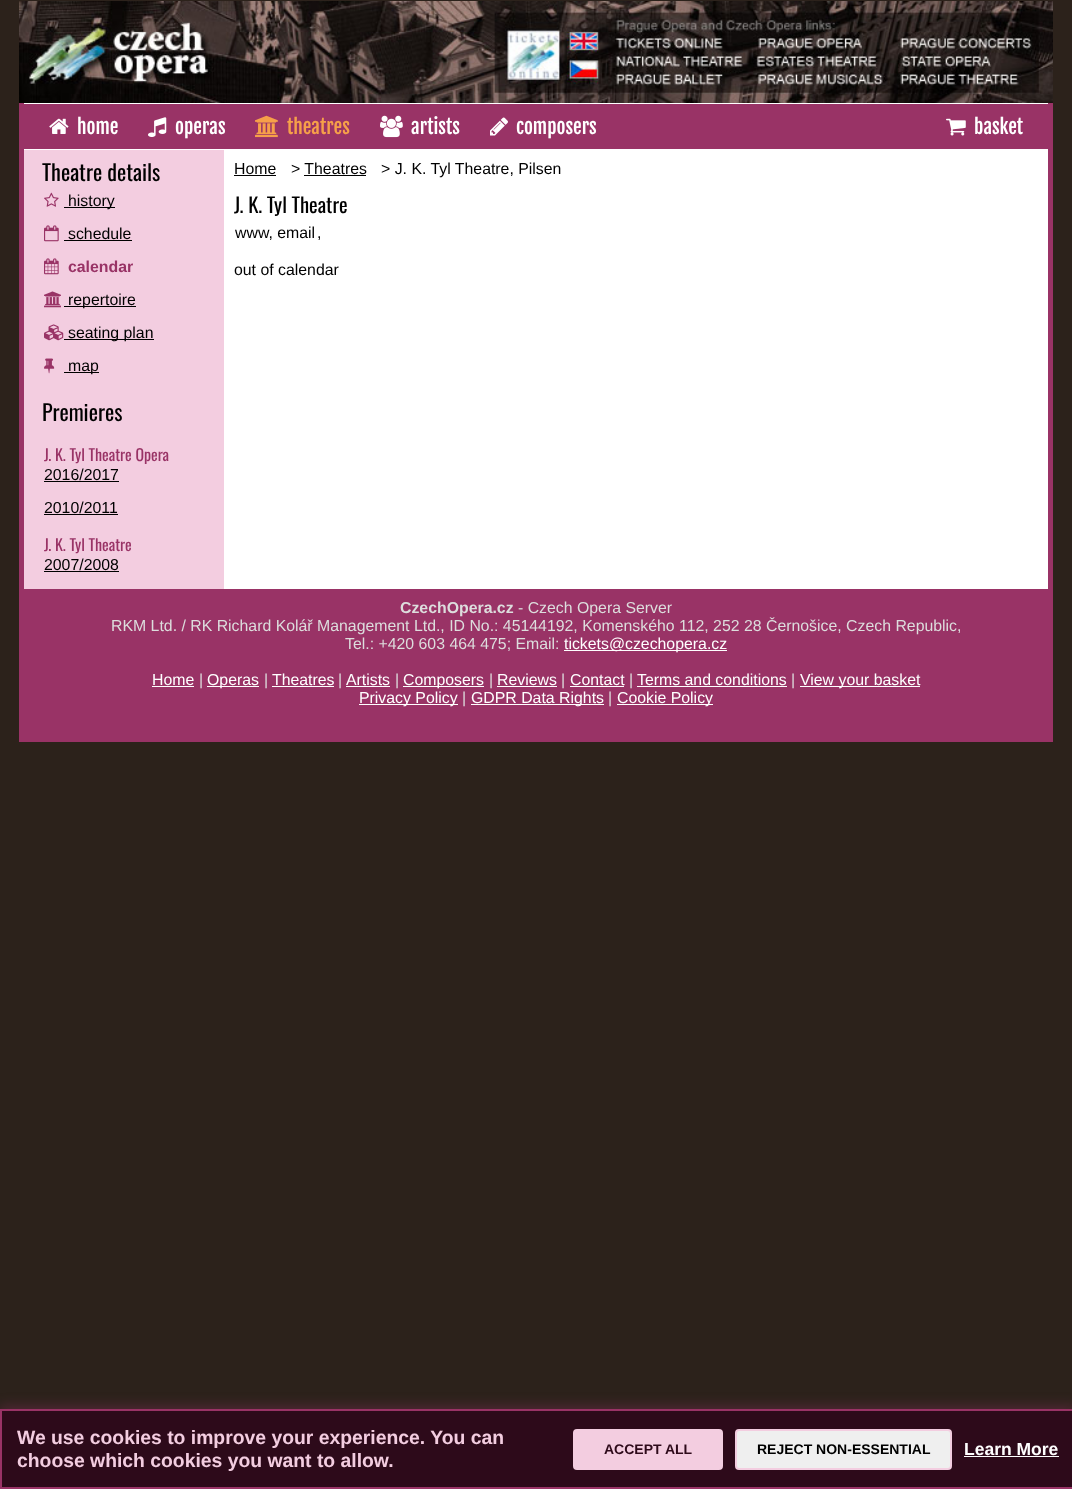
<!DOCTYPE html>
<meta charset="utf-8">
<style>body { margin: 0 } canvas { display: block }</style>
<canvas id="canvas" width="1072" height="1489"></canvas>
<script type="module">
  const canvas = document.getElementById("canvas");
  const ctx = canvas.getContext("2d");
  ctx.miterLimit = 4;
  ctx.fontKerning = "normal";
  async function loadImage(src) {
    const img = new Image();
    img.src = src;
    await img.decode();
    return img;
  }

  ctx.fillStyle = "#2c221b";
  ctx.fillRect(0, 0, 1072, 1489);
  ctx.drawImage(await loadImage("img1.png"), 19, 1, 1034, 102);
  ctx.fillStyle = "#ffffff";
  ctx.fillRect(24, 149, 1024, 440);
  ctx.fillStyle = "#993366";
  ctx.fillRect(1048, 103, 5, 639);
  ctx.fillRect(19, 103, 5, 639);
  ctx.fillRect(24, 104, 1024, 45);
  ctx.fillStyle = "#ffffff";
  ctx.fillRect(24, 103, 1024, 1);
  ctx.drawImage(await loadImage("img2.png"), 49, 118, 20, 16);
  ctx.font = "19.35px Fjalla One";
  ctx.fillText("home", 77, 134);
  ctx.drawImage(await loadImage("img3.png"), 148, 117, 19, 20);
  ctx.fillText("operas", 175, 134);
  ctx.drawImage(await loadImage("img4.png"), 255, 115, 23, 23);
  ctx.fillStyle = "#f6a049";
  ctx.fillText("theatres", 287, 134);
  ctx.drawImage(await loadImage("img5.png"), 380, 115, 23, 23);
  ctx.fillStyle = "#ffffff";
  ctx.fillText("artists", 411, 134);
  ctx.drawImage(await loadImage("img6.png"), 490, 117, 18, 19);
  ctx.fillText("composers", 516, 134);
  ctx.drawImage(await loadImage("img7.png"), 946, 118, 20, 18);
  ctx.fillText("basket", 974, 134);
  ctx.fillStyle = "#f3cde0";
  ctx.fillRect(24, 150, 200, 439);
  ctx.font = "22px Oswald";
  ctx.fillStyle = "#000000";
  ctx.fillText("Theatre details", 42, 181);
  ctx.drawImage(await loadImage("img8.png"), 44, 192, 15, 15);
  ctx.fillRect(64, 207, 51, 1);
  ctx.font = "15.85px Liberation Sans";
  ctx.fillText("history", 68, 206);
  ctx.drawImage(await loadImage("img9.png"), 44, 225, 15, 17);
  ctx.fillText("schedule", 68, 239);
  ctx.fillRect(64, 240, 68, 1);
  ctx.drawImage(await loadImage("img10.png"), 44, 258, 15, 17);
  ctx.font = "bold 15.85px Liberation Sans";
  ctx.fillStyle = "#993366";
  ctx.fillText("calendar", 68, 272);
  ctx.drawImage(await loadImage("img11.png"), 44, 291, 17, 17);
  ctx.fillStyle = "#000000";
  ctx.fillRect(64, 306, 72, 1);
  ctx.font = "15.85px Liberation Sans";
  ctx.fillText("repertoire", 68, 305);
  ctx.drawImage(await loadImage("img12.png"), 44, 324, 20, 17);
  ctx.fillRect(64, 339, 90, 1);
  ctx.fillText("seating plan", 68, 338);
  ctx.drawImage(await loadImage("img13.png"), 44, 358, 11, 16);
  ctx.fillRect(64, 372, 35, 1);
  ctx.fillText("map", 68, 371);
  ctx.font = "22px Oswald";
  ctx.fillText("Premieres", 42, 421);
  ctx.font = "15.85px Oswald";
  ctx.fillStyle = "#993366";
  ctx.fillText("J. K. Tyl Theatre Opera", 44, 461);
  ctx.font = "15.85px Liberation Sans";
  ctx.fillStyle = "#000000";
  ctx.fillText("2016/2017", 44, 480);
  ctx.fillRect(44, 481, 75, 1);
  ctx.fillText("2010/2011", 44, 513);
  ctx.fillRect(44, 514, 74, 1);
  ctx.font = "15.85px Oswald";
  ctx.fillStyle = "#993366";
  ctx.fillText("J. K. Tyl Theatre", 44, 551);
  ctx.font = "15.85px Liberation Sans";
  ctx.fillStyle = "#000000";
  ctx.fillText("2007/2008", 44, 570);
  ctx.fillRect(44, 571, 75, 1);
  ctx.fillText("Home", 234, 174);
  ctx.fillRect(234, 175, 42, 1);
  ctx.fillText("> Theatres", 291, 174);
  ctx.fillText("> J. K. Tyl Theatre, Pilsen", 381, 174);
  ctx.fillRect(304, 175, 62, 1);
  ctx.font = "20.5px Oswald";
  ctx.fillText("J. K. Tyl Theatre", 234, 213);
  ctx.font = "15.85px Liberation Sans";
  ctx.fillText("www, email", 235, 238);
  ctx.fillText(",", 317, 238);
  ctx.fillText("out of calendar", 234, 275);
  ctx.fillStyle = "#993366";
  ctx.fillRect(24, 589, 1024, 153);
  ctx.font = "bold 15.85px Liberation Sans";
  ctx.fillStyle = "#dddddd";
  ctx.fillText("CzechOpera.cz", 400, 613);
  ctx.font = "15.85px Liberation Sans";
  ctx.fillText("- Czech Opera Server", 518, 613);
  ctx.fillText("RKM Ltd. / RK Richard Kolář Management Ltd., ID No.: 45144192, Komenského 112, 252 28 Černošice, Czech Republic,", 111, 631);
  ctx.fillText("Tel.: +420 603 464 475; Email:", 345, 649);
  ctx.fillStyle = "#ffffff";
  ctx.fillRect(564, 650, 163, 1);
  ctx.fillText("tickets@czechopera.cz", 564, 649);
  ctx.fillText("Home", 152, 685);
  ctx.fillRect(152, 686, 42, 1);
  ctx.fillStyle = "#dddddd";
  ctx.fillText("|", 199, 685);
  ctx.fillStyle = "#ffffff";
  ctx.fillRect(207, 686, 52, 1);
  ctx.fillText("Operas", 207, 685);
  ctx.fillStyle = "#dddddd";
  ctx.fillText("|", 264, 685);
  ctx.fillStyle = "#ffffff";
  ctx.fillText("Theatres", 272, 685);
  ctx.fillRect(272, 686, 62, 1);
  ctx.fillStyle = "#dddddd";
  ctx.fillText("|", 338, 685);
  ctx.fillStyle = "#ffffff";
  ctx.fillText("Artists", 346, 685);
  ctx.fillRect(346, 686, 44, 1);
  ctx.fillStyle = "#dddddd";
  ctx.fillText("|", 395, 685);
  ctx.fillStyle = "#ffffff";
  ctx.fillRect(403, 686, 81, 1);
  ctx.fillText("Composers", 403, 685);
  ctx.fillStyle = "#dddddd";
  ctx.fillText("|", 489, 685);
  ctx.fillStyle = "#ffffff";
  ctx.fillText("Reviews", 497, 685);
  ctx.fillRect(497, 686, 60, 1);
  ctx.fillStyle = "#dddddd";
  ctx.fillText("|", 561, 685);
  ctx.fillStyle = "#ffffff";
  ctx.fillText("Contact", 570, 685);
  ctx.fillRect(570, 686, 54, 1);
  ctx.fillStyle = "#dddddd";
  ctx.fillText("|", 629, 685);
  ctx.fillStyle = "#ffffff";
  ctx.fillText("Terms and conditions", 637, 685);
  ctx.fillRect(637, 686, 150, 1);
  ctx.fillStyle = "#dddddd";
  ctx.fillText("|", 791, 685);
  ctx.fillStyle = "#ffffff";
  ctx.fillRect(800, 686, 120, 1);
  ctx.fillText("View your basket", 800, 685);
  ctx.fillRect(359, 704, 99, 1);
  ctx.fillText("Privacy Policy", 359, 703);
  ctx.fillStyle = "#dddddd";
  ctx.fillText("|", 462, 703);
  ctx.fillStyle = "#ffffff";
  ctx.fillRect(471, 704, 133, 1);
  ctx.fillText("GDPR Data Rights", 471, 703);
  ctx.fillStyle = "#dddddd";
  ctx.fillText("|", 608, 703);
  ctx.fillStyle = "#ffffff";
  ctx.fillRect(617, 704, 96, 1);
  ctx.fillText("Cookie Policy", 617, 703);
  ctx.fillStyle = "rgba(153, 51, 102, 0.3)";
  ctx.filter = "blur(6px)";
  ctx.beginPath();
  ctx.rect(0, 1405, 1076, 80);
  ctx.fill();
  ctx.filter = "none";
  ctx.fillStyle = "#2d0a1a";
  ctx.beginPath();
  ctx.rect(1, 1410, 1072, 78);
  ctx.fill();
  ctx.strokeStyle = "#993366";
  ctx.lineWidth = 2;
  ctx.stroke();
  ctx.font = "bold 19.35px Liberation Sans";
  ctx.fillStyle = "#f3cde0";
  ctx.fillText("We use cookies to improve your experience. You can", 17, 1444);
  ctx.fillText("choose which cookies you want to allow.", 17, 1467);
  ctx.beginPath();
  ctx.roundRect(574, 1430, 148, 39, 3);
  ctx.fill();
  ctx.strokeStyle = "#f3cde0";
  ctx.stroke();
  ctx.font = "bold 14px Liberation Sans";
  ctx.fillStyle = "#2d0a1a";
  ctx.fillText("ACCEPT ALL", 604, 1454);
  ctx.fillStyle = "#efefef";
  ctx.beginPath();
  ctx.roundRect(736, 1430, 215, 39, 3);
  ctx.fill();
  ctx.stroke();
  ctx.fillStyle = "#000000";
  ctx.fillText("REJECT NON-ESSENTIAL", 757, 1454);
  ctx.font = "bold 17.5px Liberation Sans";
  ctx.fillStyle = "#ffffff";
  ctx.fillText("Learn More", 964, 1455);
  ctx.fillRect(964, 1456, 95, 1);
</script>
